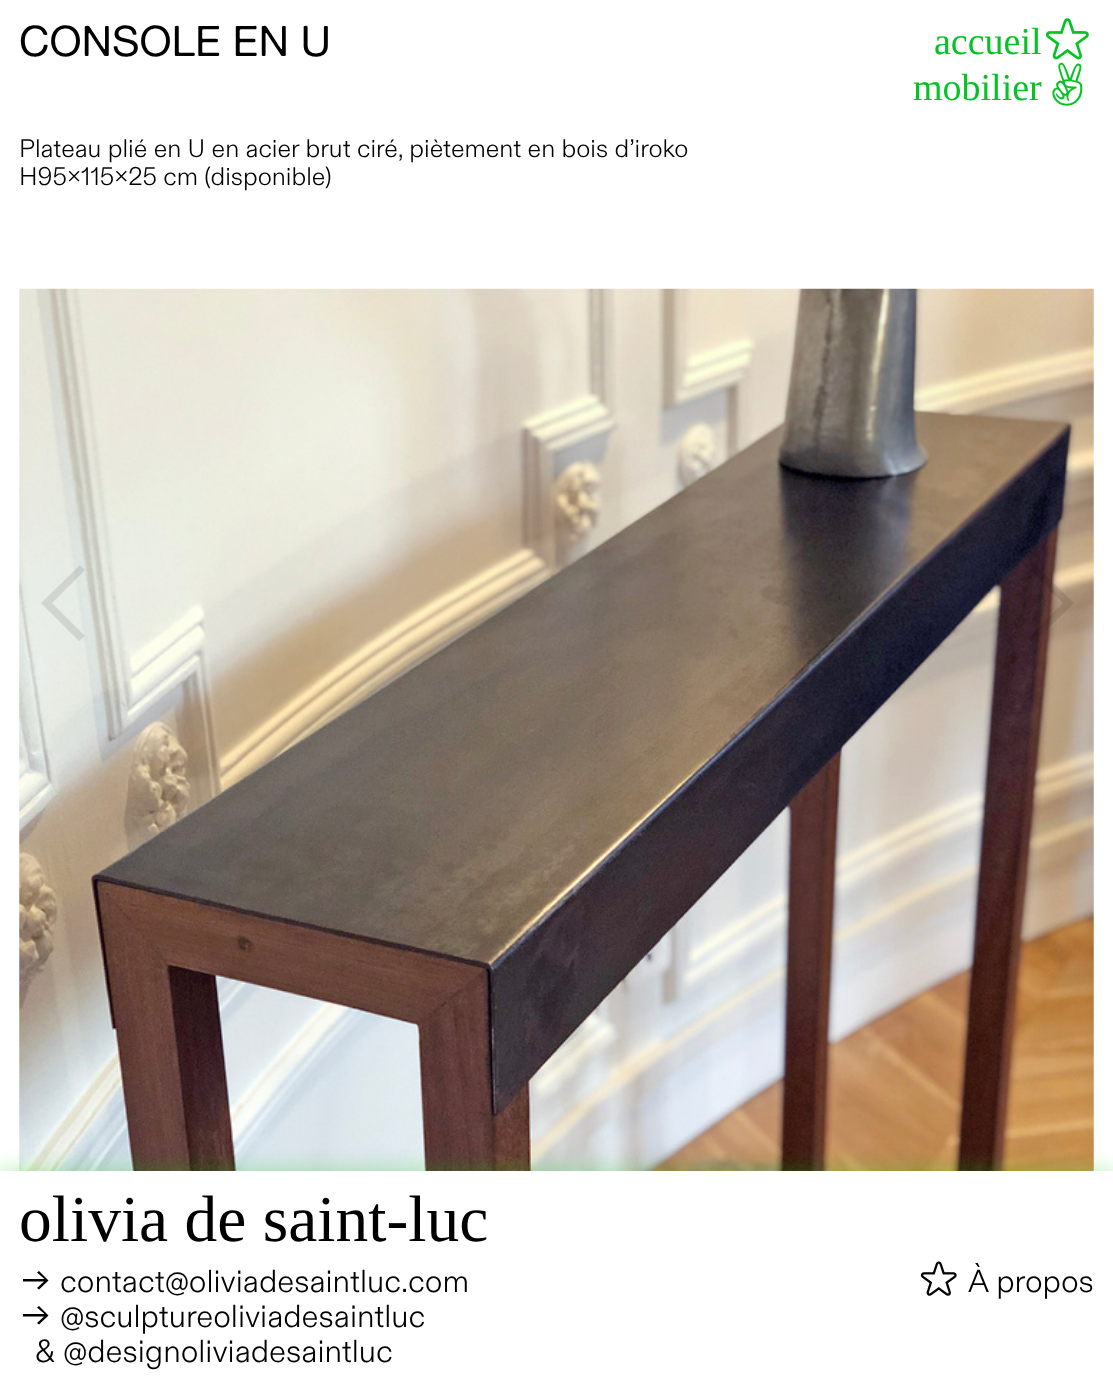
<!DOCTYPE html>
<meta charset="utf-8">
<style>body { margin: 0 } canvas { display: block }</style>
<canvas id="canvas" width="1113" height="1388"></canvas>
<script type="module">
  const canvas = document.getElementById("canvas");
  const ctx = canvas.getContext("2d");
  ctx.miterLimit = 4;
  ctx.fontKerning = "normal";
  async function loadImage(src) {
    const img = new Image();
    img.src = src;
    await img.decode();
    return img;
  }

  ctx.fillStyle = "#ffffff";
  ctx.fillRect(0, 0, 1113, 1388);
  ctx.font = "42.25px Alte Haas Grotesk";
  ctx.fillStyle = "#000000";
  ctx.fillText("CONSOLE EN U", 19, 56);
  ctx.font = "300 25.4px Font";
  ctx.fillText("Plateau plié en U en acier brut ciré, piètement en bois d’iroko", 19, 157);
  ctx.fillText("H95x115x25 cm (disponible)", 19, 185);
  ctx.drawImage(await loadImage("img1.png"), 19, 288, 1075, 883);
  ctx.font = "38px Liberation Serif";
  ctx.fillStyle = "#05c324";
  ctx.fillText("accueil", 934, 54);
  ctx.drawImage(await loadImage("img2.png"), 1045, 18, 44, 42);
  ctx.fillText("mobilier", 913, 100);
  ctx.drawImage(await loadImage("img3.png"), 1052, 62, 31, 44);
  ctx.fillStyle = "rgba(0, 0, 0, 0.1)";
  ctx.beginPath();
  ctx.moveTo(85, 636);
  ctx.lineTo(52, 603);
  ctx.lineTo(85, 570);
  ctx.lineTo(80, 565);
  ctx.lineTo(41, 603);
  ctx.lineTo(79, 641);
  ctx.closePath();
  ctx.fill();
  ctx.beginPath();
  ctx.moveTo(1074, 603);
  ctx.lineTo(1035, 565);
  ctx.lineTo(1030, 570);
  ctx.lineTo(1063, 603);
  ctx.lineTo(1030, 636);
  ctx.lineTo(1035, 641);
  ctx.closePath();
  ctx.fill();
  ctx.fillStyle = "rgba(5, 195, 3, 0.4)";
  ctx.filter = "blur(13px)";
  ctx.beginPath();
  ctx.rect(0, 1174, 1113, 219);
  ctx.fill();
  ctx.filter = "none";
  ctx.fillStyle = "#ffffff";
  ctx.fillRect(0, 1171, 1113, 217);
  ctx.font = "65.5px Liberation Serif";
  ctx.fillStyle = "#000000";
  ctx.fillText("olivia de saint-luc", 19, 1241);
  ctx.font = "300 31.75px Font";
  ctx.fillText("contact@oliviadesaintluc.com", 60, 1292);
  ctx.beginPath();
  ctx.moveTo(23, 1281.5);
  ctx.lineTo(44, 1281.5);
  ctx.lineTo(37, 1288);
  ctx.lineTo(39, 1289.5);
  ctx.lineTo(48.5, 1280.5);
  ctx.lineTo(39, 1271);
  ctx.lineTo(37, 1272.5);
  ctx.lineTo(44.5, 1279);
  ctx.lineTo(23, 1279);
  ctx.closePath();
  ctx.fill();
  ctx.fillText("@sculptureoliviadesaintluc", 60, 1327);
  ctx.beginPath();
  ctx.moveTo(23, 1316.5);
  ctx.lineTo(44, 1316.5);
  ctx.lineTo(37, 1323);
  ctx.lineTo(39, 1324.5);
  ctx.lineTo(48.5, 1315.5);
  ctx.lineTo(39, 1306);
  ctx.lineTo(37, 1307.5);
  ctx.lineTo(44.5, 1314);
  ctx.lineTo(23, 1314);
  ctx.closePath();
  ctx.fill();
  ctx.fillText("& @designoliviadesaintluc", 35, 1362);
  ctx.drawImage(await loadImage("img4.png"), 920, 1261, 37, 35);
  ctx.fillText("À propos", 968, 1292);
</script>
